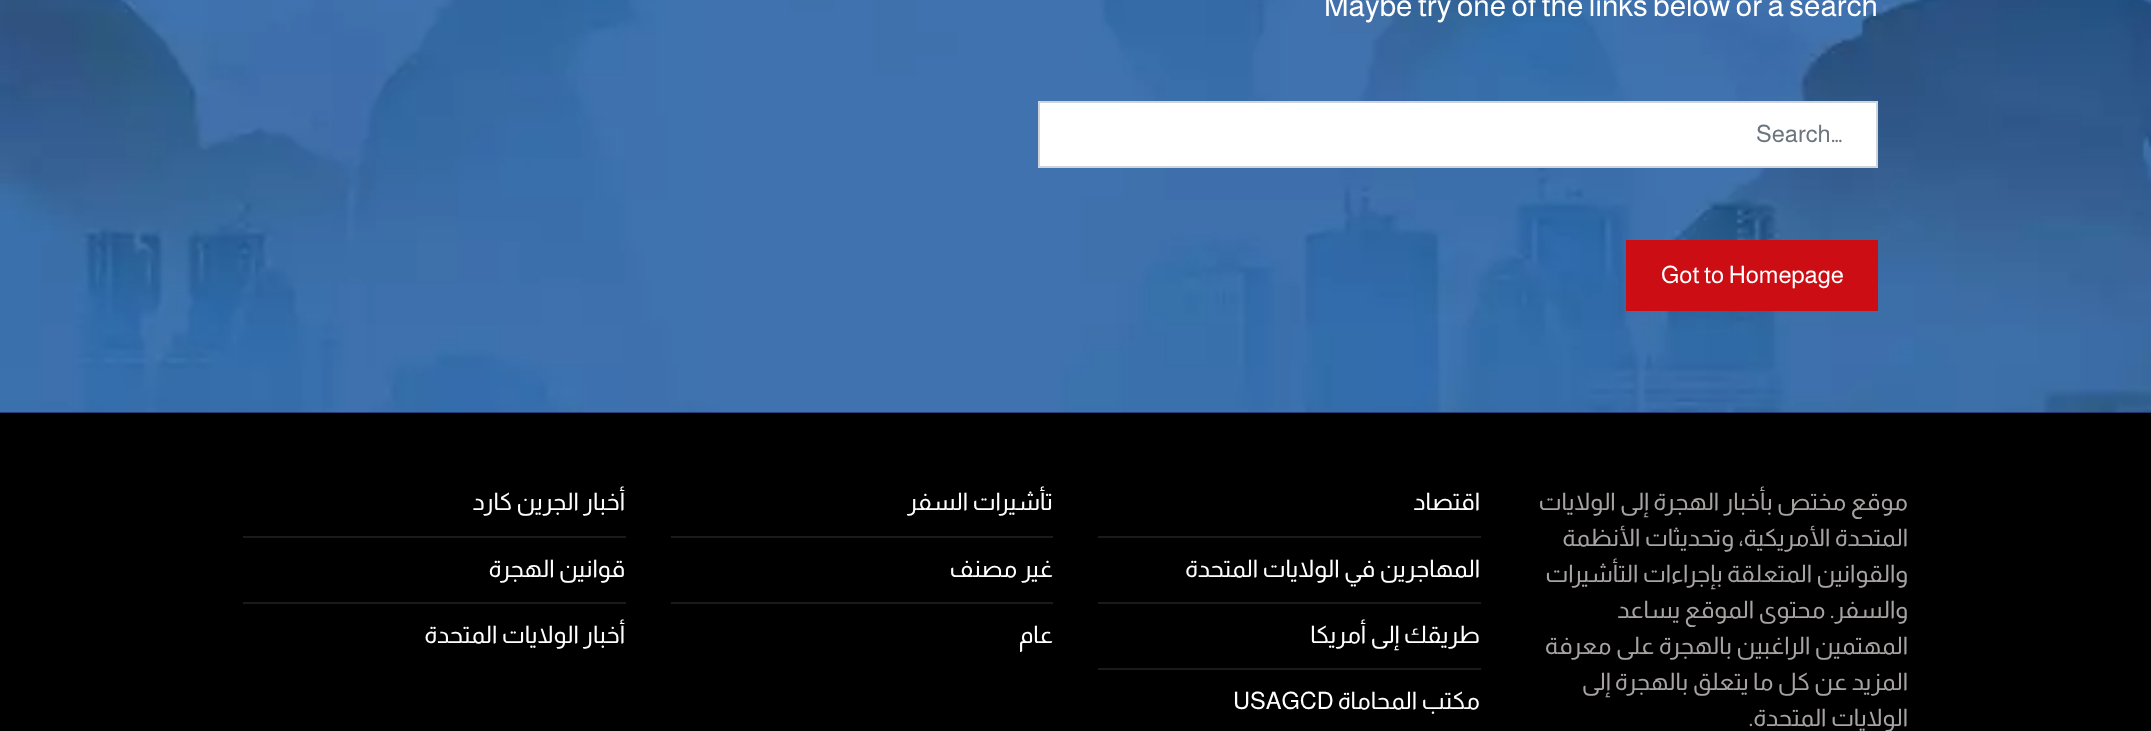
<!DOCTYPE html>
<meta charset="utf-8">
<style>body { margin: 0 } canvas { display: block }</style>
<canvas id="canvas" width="2151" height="731"></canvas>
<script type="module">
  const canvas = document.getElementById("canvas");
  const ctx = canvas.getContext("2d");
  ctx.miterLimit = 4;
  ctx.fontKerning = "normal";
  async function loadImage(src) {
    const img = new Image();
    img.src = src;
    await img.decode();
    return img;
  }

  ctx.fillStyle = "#160c4b";
  ctx.fillRect(0, 0, 2151, 731);
  ctx.drawImage(await loadImage("img1.png"), 0, 0, 2151, 413);
  ctx.font = "30px Almarai";
  ctx.fillStyle = "#ffffff";
  ctx.fillText("Maybe try one of the links below or a search", 1324, 16);
  ctx.beginPath();
  ctx.rect(1039, 102, 838, 65);
  ctx.fill();
  ctx.strokeStyle = "#ced4da";
  ctx.lineWidth = 2;
  ctx.stroke();
  ctx.font = "24px Almarai";
  ctx.fillStyle = "#6c757d";
  ctx.fillText("Search…", 1756, 142);
  ctx.fillStyle = "#cc0d14";
  ctx.fillRect(1626, 240, 252, 71);
  ctx.fillStyle = "#ffffff";
  ctx.fillText("Got to Homepage", 1661, 283);
  ctx.fillStyle = "#000000";
  ctx.fillRect(0, 413, 2151, 318);
  ctx.direction = "rtl";
  ctx.fillStyle = "#a7a3a3";
  ctx.fillText("موقع مختص بأخبار الهجرة إلى الولايات", 1908, 510);
  ctx.fillText("المتحدة الأمريكية، وتحديثات الأنظمة", 1908, 546);
  ctx.fillText("والقوانين المتعلقة بإجراءات التأشيرات", 1908, 582);
  ctx.fillText("والسفر. محتوى الموقع يساعد", 1908, 618);
  ctx.fillText("المهتمين الراغبين بالهجرة على معرفة", 1908, 654);
  ctx.fillText("المزيد عن كل ما يتعلق بالهجرة إلى", 1908, 690);
  ctx.fillText("الولايات المتحدة.", 1908, 726);
  ctx.fillStyle = "#1a1a1a";
  ctx.fillRect(1098, 536, 383, 2);
  ctx.fillStyle = "#ffffff";
  ctx.fillText("اقتصاد", 1480, 510);
  ctx.fillStyle = "#1a1a1a";
  ctx.fillRect(1098, 602, 383, 2);
  ctx.fillStyle = "#ffffff";
  ctx.fillText("المهاجرين في الولايات المتحدة", 1480, 577);
  ctx.fillStyle = "#1a1a1a";
  ctx.fillRect(1098, 668, 383, 2);
  ctx.fillStyle = "#ffffff";
  ctx.fillText("طريقك إلى أمريكا", 1480, 643);
  ctx.fillText("مكتب المحاماة", 1480, 709);
  ctx.direction = "ltr";
  ctx.fillText("USAGCD", 1233, 709);
  ctx.fillStyle = "#1a1a1a";
  ctx.fillRect(671, 536, 382, 2);
  ctx.direction = "rtl";
  ctx.fillStyle = "#ffffff";
  ctx.fillText("تأشيرات السفر", 1053, 510);
  ctx.fillStyle = "#1a1a1a";
  ctx.fillRect(671, 602, 382, 2);
  ctx.fillStyle = "#ffffff";
  ctx.fillText("غير مصنف", 1053, 577);
  ctx.fillText("عام", 1053, 643);
  ctx.fillStyle = "#1a1a1a";
  ctx.fillRect(243, 536, 383, 2);
  ctx.fillStyle = "#ffffff";
  ctx.fillText("أخبار الجرين كارد", 625, 510);
  ctx.fillStyle = "#1a1a1a";
  ctx.fillRect(243, 602, 383, 2);
  ctx.fillStyle = "#ffffff";
  ctx.fillText("قوانين الهجرة", 625, 577);
  ctx.fillText("أخبار الولايات المتحدة", 625, 643);
</script>
